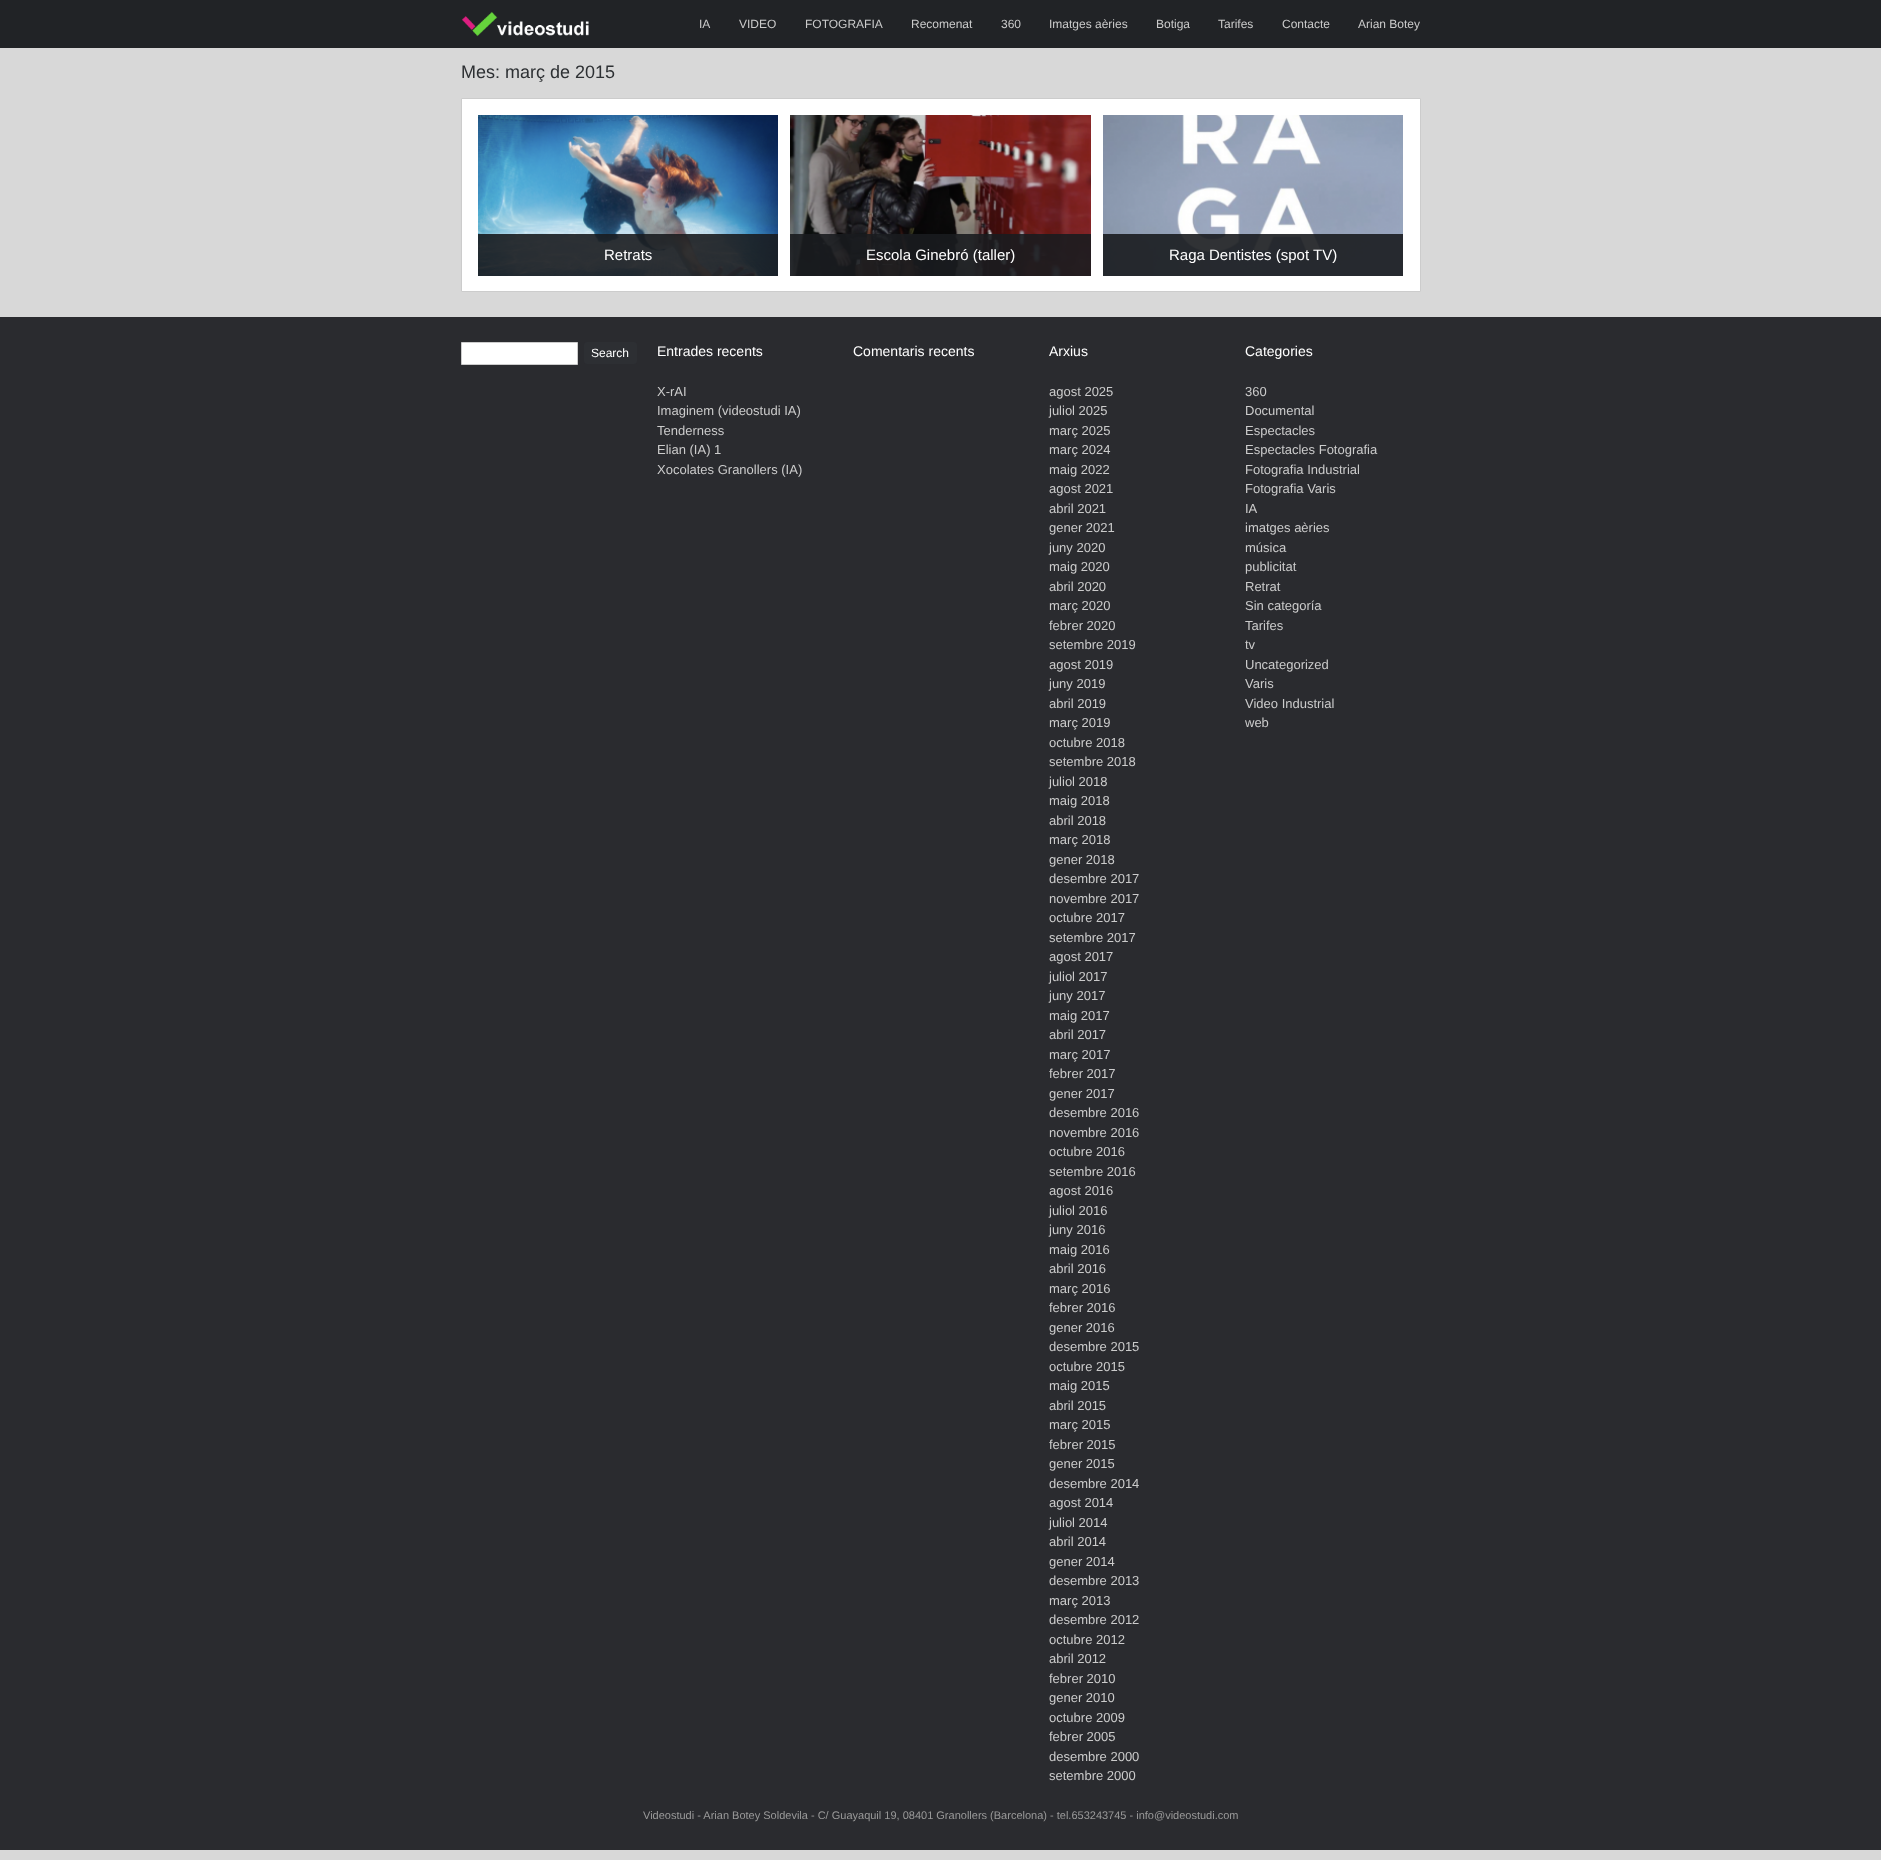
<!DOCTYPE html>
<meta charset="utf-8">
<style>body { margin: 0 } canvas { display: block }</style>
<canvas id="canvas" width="1881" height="1860"></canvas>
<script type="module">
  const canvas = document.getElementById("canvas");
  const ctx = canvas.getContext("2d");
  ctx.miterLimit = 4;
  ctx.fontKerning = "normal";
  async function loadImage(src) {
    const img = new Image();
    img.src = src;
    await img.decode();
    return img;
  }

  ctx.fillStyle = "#d8d8d8";
  ctx.fillRect(0, 0, 1881, 1860);
  ctx.fillStyle = "#212326";
  ctx.fillRect(0, 0, 1881, 48);
  ctx.drawImage(await loadImage("img1.png"), 461, 11, 128, 26);
  ctx.font = "12px Liberation Sans";
  ctx.fillStyle = "#cbcbcb";
  ctx.fillText("IA", 699, 28);
  ctx.fillText("VIDEO", 739, 28);
  ctx.fillText("FOTOGRAFIA", 805, 28);
  ctx.fillText("Recomenat", 911, 28);
  ctx.fillText("360", 1001, 28);
  ctx.fillText("Imatges aèries", 1049, 28);
  ctx.fillText("Botiga", 1156, 28);
  ctx.fillText("Tarifes", 1218, 28);
  ctx.fillText("Contacte", 1282, 28);
  ctx.fillText("Arian Botey", 1358, 28);
  ctx.font = "18px Liberation Sans";
  ctx.fillStyle = "#2d3033";
  ctx.fillText("Mes: març de 2015", 461, 78);
  ctx.fillStyle = "#ffffff";
  ctx.beginPath();
  ctx.rect(461.5, 98.5, 959, 193);
  ctx.fill();
  ctx.strokeStyle = "#cccccc";
  ctx.stroke();
  ctx.drawImage(await loadImage("img2.png"), 478, 115, 300, 161);
  ctx.fillStyle = "rgba(26, 28, 31, 0.9)";
  ctx.fillRect(478, 234, 300, 42);
  ctx.font = "15px Liberation Sans";
  ctx.fillStyle = "#ffffff";
  ctx.fillText("Retrats", 604, 260);
  ctx.drawImage(await loadImage("img3.png"), 790, 115, 301, 161);
  ctx.fillStyle = "rgba(26, 28, 31, 0.9)";
  ctx.fillRect(790, 234, 301, 42);
  ctx.fillStyle = "#ffffff";
  ctx.fillText("Escola Ginebró (taller)", 866, 260);
  ctx.drawImage(await loadImage("img4.png"), 1103, 115, 300, 161);
  ctx.fillStyle = "rgba(26, 28, 31, 0.9)";
  ctx.fillRect(1103, 234, 300, 42);
  ctx.fillStyle = "#ffffff";
  ctx.fillText("Raga Dentistes (spot TV)", 1169, 260);
  ctx.fillStyle = "#2a2b2f";
  ctx.fillRect(0, 317, 1881, 1533);
  ctx.fillStyle = "#ffffff";
  ctx.beginPath();
  ctx.rect(461.5, 342.5, 116, 22);
  ctx.fill();
  ctx.stroke();
  ctx.fillStyle = "#2d2f33";
  ctx.beginPath();
  ctx.roundRect(584, 342, 53, 22, 3);
  ctx.fill();
  ctx.font = "12px Liberation Sans";
  ctx.fillStyle = "#ffffff";
  ctx.fillText("Search", 591, 357);
  ctx.font = "14px Liberation Sans";
  ctx.fillText("Entrades recents", 657, 356);
  ctx.font = "13px Liberation Sans";
  ctx.fillStyle = "#cbcbcb";
  ctx.fillText("X-rAI", 657, 396);
  ctx.fillText("Imaginem (videostudi IA)", 657, 415);
  ctx.fillText("Tenderness", 657, 435);
  ctx.fillText("Elian (IA) 1", 657, 454);
  ctx.fillText("Xocolates Granollers (IA)", 657, 474);
  ctx.font = "14px Liberation Sans";
  ctx.fillStyle = "#ffffff";
  ctx.fillText("Comentaris recents", 853, 356);
  ctx.fillText("Arxius", 1049, 356);
  ctx.font = "13px Liberation Sans";
  ctx.fillStyle = "#cbcbcb";
  ctx.fillText("agost 2025", 1049, 396);
  ctx.fillText("juliol 2025", 1049, 415);
  ctx.fillText("març 2025", 1049, 435);
  ctx.fillText("març 2024", 1049, 454);
  ctx.fillText("maig 2022", 1049, 474);
  ctx.fillText("agost 2021", 1049, 493);
  ctx.fillText("abril 2021", 1049, 513);
  ctx.fillText("gener 2021", 1049, 532);
  ctx.fillText("juny 2020", 1049, 552);
  ctx.fillText("maig 2020", 1049, 571);
  ctx.fillText("abril 2020", 1049, 591);
  ctx.fillText("març 2020", 1049, 610);
  ctx.fillText("febrer 2020", 1049, 630);
  ctx.fillText("setembre 2019", 1049, 649);
  ctx.fillText("agost 2019", 1049, 669);
  ctx.fillText("juny 2019", 1049, 688);
  ctx.fillText("abril 2019", 1049, 708);
  ctx.fillText("març 2019", 1049, 727);
  ctx.fillText("octubre 2018", 1049, 747);
  ctx.fillText("setembre 2018", 1049, 766);
  ctx.fillText("juliol 2018", 1049, 786);
  ctx.fillText("maig 2018", 1049, 805);
  ctx.fillText("abril 2018", 1049, 825);
  ctx.fillText("març 2018", 1049, 844);
  ctx.fillText("gener 2018", 1049, 864);
  ctx.fillText("desembre 2017", 1049, 883);
  ctx.fillText("novembre 2017", 1049, 903);
  ctx.fillText("octubre 2017", 1049, 922);
  ctx.fillText("setembre 2017", 1049, 942);
  ctx.fillText("agost 2017", 1049, 961);
  ctx.fillText("juliol 2017", 1049, 981);
  ctx.fillText("juny 2017", 1049, 1000);
  ctx.fillText("maig 2017", 1049, 1020);
  ctx.fillText("abril 2017", 1049, 1039);
  ctx.fillText("març 2017", 1049, 1059);
  ctx.fillText("febrer 2017", 1049, 1078);
  ctx.fillText("gener 2017", 1049, 1098);
  ctx.fillText("desembre 2016", 1049, 1117);
  ctx.fillText("novembre 2016", 1049, 1137);
  ctx.fillText("octubre 2016", 1049, 1156);
  ctx.fillText("setembre 2016", 1049, 1176);
  ctx.fillText("agost 2016", 1049, 1195);
  ctx.fillText("juliol 2016", 1049, 1215);
  ctx.fillText("juny 2016", 1049, 1234);
  ctx.fillText("maig 2016", 1049, 1254);
  ctx.fillText("abril 2016", 1049, 1273);
  ctx.fillText("març 2016", 1049, 1293);
  ctx.fillText("febrer 2016", 1049, 1312);
  ctx.fillText("gener 2016", 1049, 1332);
  ctx.fillText("desembre 2015", 1049, 1351);
  ctx.fillText("octubre 2015", 1049, 1371);
  ctx.fillText("maig 2015", 1049, 1390);
  ctx.fillText("abril 2015", 1049, 1410);
  ctx.fillText("març 2015", 1049, 1429);
  ctx.fillText("febrer 2015", 1049, 1449);
  ctx.fillText("gener 2015", 1049, 1468);
  ctx.fillText("desembre 2014", 1049, 1488);
  ctx.fillText("agost 2014", 1049, 1507);
  ctx.fillText("juliol 2014", 1049, 1527);
  ctx.fillText("abril 2014", 1049, 1546);
  ctx.fillText("gener 2014", 1049, 1566);
  ctx.fillText("desembre 2013", 1049, 1585);
  ctx.fillText("març 2013", 1049, 1605);
  ctx.fillText("desembre 2012", 1049, 1624);
  ctx.fillText("octubre 2012", 1049, 1644);
  ctx.fillText("abril 2012", 1049, 1663);
  ctx.fillText("febrer 2010", 1049, 1683);
  ctx.fillText("gener 2010", 1049, 1702);
  ctx.fillText("octubre 2009", 1049, 1722);
  ctx.fillText("febrer 2005", 1049, 1741);
  ctx.fillText("desembre 2000", 1049, 1761);
  ctx.fillText("setembre 2000", 1049, 1780);
  ctx.font = "14px Liberation Sans";
  ctx.fillStyle = "#ffffff";
  ctx.fillText("Categories", 1245, 356);
  ctx.font = "13px Liberation Sans";
  ctx.fillStyle = "#cbcbcb";
  ctx.fillText("360", 1245, 396);
  ctx.fillText("Documental", 1245, 415);
  ctx.fillText("Espectacles", 1245, 435);
  ctx.fillText("Espectacles Fotografia", 1245, 454);
  ctx.fillText("Fotografia Industrial", 1245, 474);
  ctx.fillText("Fotografia Varis", 1245, 493);
  ctx.fillText("IA", 1245, 513);
  ctx.fillText("imatges aèries", 1245, 532);
  ctx.fillText("música", 1245, 552);
  ctx.fillText("publicitat", 1245, 571);
  ctx.fillText("Retrat", 1245, 591);
  ctx.fillText("Sin categoría", 1245, 610);
  ctx.fillText("Tarifes", 1245, 630);
  ctx.fillText("tv", 1245, 649);
  ctx.fillText("Uncategorized", 1245, 669);
  ctx.fillText("Varis", 1245, 688);
  ctx.fillText("Video Industrial", 1245, 708);
  ctx.fillText("web", 1245, 727);
  ctx.font = "11px Liberation Sans";
  ctx.fillStyle = "#999999";
  ctx.fillText("Videostudi - Arian Botey Soldevila - C/ Guayaquil 19, 08401 Granollers (Barcelona) - tel.653243745 - info@videostudi.com", 643, 1819);
</script>
